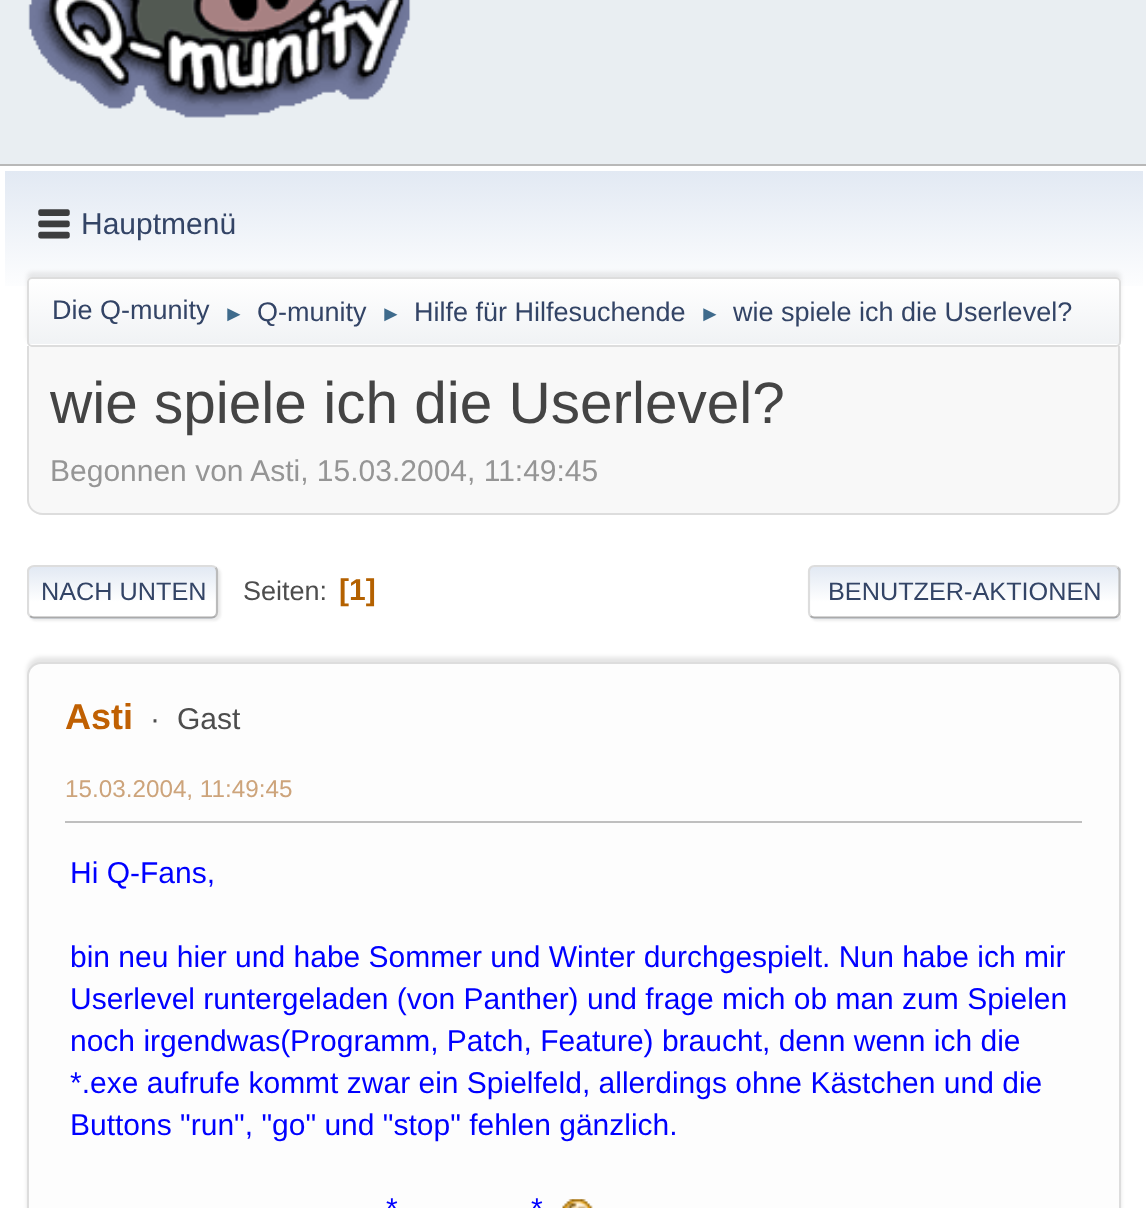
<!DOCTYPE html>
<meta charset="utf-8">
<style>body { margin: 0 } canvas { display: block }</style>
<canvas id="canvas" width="1146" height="1208"></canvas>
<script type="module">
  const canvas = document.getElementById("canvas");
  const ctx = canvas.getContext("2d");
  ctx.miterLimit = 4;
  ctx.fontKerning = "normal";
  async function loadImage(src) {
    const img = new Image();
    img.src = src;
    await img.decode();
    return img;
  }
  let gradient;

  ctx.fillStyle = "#e9eef2";
  ctx.fillRect(0, 0, 1146, 1208);
  ctx.drawImage(await loadImage("img1.png"), 28, 0, 383, 118);
  ctx.fillStyle = "#ffffff";
  ctx.fillRect(0, 166, 1146, 1042);
  ctx.fillStyle = "#b8b8b8";
  ctx.fillRect(0, 164, 1146, 2);
  gradient = ctx.createLinearGradient(574, 171, 574, 351);
  gradient.addColorStop(0, "#e2e9f3");
  gradient.addColorStop(0.7, "#ffffff");
  ctx.fillStyle = gradient;
  ctx.fillRect(5, 171, 1138, 115);
  ctx.drawImage(await loadImage("img2.png"), 38, 209, 32, 30);
  ctx.font = "30px Liberation Sans";
  ctx.fillStyle = "#334466";
  ctx.fillText("Hauptmenü", 81, 234);
  ctx.fillStyle = "rgba(0, 0, 0, 0.08)";
  ctx.filter = "blur(2px)";
  ctx.beginPath();
  ctx.roundRect(27, 272, 1094, 70, 5);
  ctx.fill();
  ctx.filter = "none";
  ctx.fillStyle = "#ffffff";
  ctx.beginPath();
  ctx.roundRect(27, 277, 1094, 70, 5);
  ctx.fill();
  ctx.save();
  ctx.beginPath();
  ctx.roundRect(27, 277, 1094, 70, 5);
  ctx.clip();
  gradient = ctx.createLinearGradient(574, 279, 574, 344);
  gradient.addColorStop(0, "#ffffff");
  gradient.addColorStop(0.95, "#f1f3f5");
  ctx.fillStyle = gradient;
  ctx.fillRect(27, 279, 1094, 65);
  ctx.restore();
  ctx.beginPath();
  ctx.roundRect(28, 278, 1092, 68, 4);
  ctx.strokeStyle = "#dddddd";
  ctx.lineWidth = 2;
  ctx.stroke();
  ctx.font = "27px Liberation Sans";
  ctx.fillStyle = "#334466";
  ctx.fillText("Die Q-munity", 52, 319);
  ctx.font = "22px Liberation Sans";
  ctx.fillStyle = "#3f6b8c";
  ctx.fillText("►", 223, 321);
  ctx.font = "27px Liberation Sans";
  ctx.fillStyle = "#334466";
  ctx.fillText("Q-munity", 257, 321);
  ctx.font = "22px Liberation Sans";
  ctx.fillStyle = "#3f6b8c";
  ctx.fillText("►", 380, 321);
  ctx.font = "27px Liberation Sans";
  ctx.fillStyle = "#334466";
  ctx.fillText("Hilfe für Hilfesuchende", 414, 321);
  ctx.font = "22px Liberation Sans";
  ctx.fillStyle = "#3f6b8c";
  ctx.fillText("►", 699, 321);
  ctx.font = "27px Liberation Sans";
  ctx.fillStyle = "#334466";
  ctx.fillText("wie spiele ich die Userlevel?", 733, 321);
  ctx.fillStyle = "#f8f8f8";
  ctx.beginPath();
  ctx.roundRect(27, 347, 1094, 168, [0, 0, 16, 16]);
  ctx.fill();
  ctx.fillStyle = "#dddddd";
  ctx.beginPath();
  ctx.moveTo(27, 346);
  ctx.lineTo(1120, 346);
  ctx.lineTo(1120, 500);
  ctx.bezierCurveTo(1120, 508, 1113, 515, 1105, 515);
  ctx.lineTo(43, 515);
  ctx.bezierCurveTo(34, 515, 27, 508, 27, 500);
  ctx.closePath();
  ctx.moveTo(29, 346);
  ctx.lineTo(1118, 346);
  ctx.lineTo(1118, 500);
  ctx.bezierCurveTo(1118, 507, 1112, 513, 1105, 513);
  ctx.lineTo(43, 513);
  ctx.bezierCurveTo(35, 513, 29, 507, 29, 500);
  ctx.closePath();
  ctx.fill("evenodd");
  ctx.font = "58.5px Liberation Sans";
  ctx.fillStyle = "#444444";
  ctx.fillText("wie spiele ich die Userlevel?", 50, 423);
  ctx.font = "30px Liberation Sans";
  ctx.fillStyle = "#959595";
  ctx.fillText("Begonnen von Asti, 15.03.2004, 11:49:45", 50, 481);
  ctx.fillStyle = "rgba(221, 221, 221, 0.57)";
  ctx.filter = "blur(1px)";
  ctx.beginPath();
  ctx.roundRect(29, 567, 192, 54, 7);
  ctx.fill();
  ctx.filter = "none";
  ctx.save();
  ctx.beginPath();
  ctx.roundRect(27, 565, 191, 54, 7);
  ctx.clip();
  gradient = ctx.createLinearGradient(123, 567, 123, 617);
  gradient.addColorStop(0, "#e2e9f3");
  gradient.addColorStop(0.7, "#ffffff");
  ctx.fillStyle = gradient;
  ctx.fillRect(27, 567, 191, 50);
  gradient = ctx.createLinearGradient(123, 617, 123, 666);
  gradient.addColorStop(0, "#e2e9f3");
  gradient.addColorStop(0.7, "#ffffff");
  ctx.fillStyle = gradient;
  ctx.fillRect(27, 617, 191, 2);
  ctx.restore();
  ctx.beginPath();
  ctx.moveTo(215.5, 567.5);
  ctx.bezierCurveTo(216.5, 568.5, 217, 570, 217, 571.5);
  ctx.lineTo(217, 612);
  ctx.bezierCurveTo(217, 613.5, 216.5, 615, 215.5, 616);
  ctx.strokeStyle = "#bbbbbb";
  ctx.lineWidth = 2.2;
  ctx.stroke();
  ctx.beginPath();
  ctx.moveTo(215.5, 616);
  ctx.bezierCurveTo(214.5, 617, 213, 617.5, 211.5, 617.5);
  ctx.lineTo(34, 617.5);
  ctx.bezierCurveTo(32.5, 617.5, 31, 617, 30, 616);
  ctx.strokeStyle = "#aaaaaa";
  ctx.stroke();
  ctx.save();
  ctx.beginPath();
  ctx.rect(27, 549, 1094, 86);
  ctx.clip();
  ctx.beginPath();
  ctx.moveTo(30, 616);
  ctx.bezierCurveTo(28.5, 615, 28, 613.5, 28, 612);
  ctx.lineTo(28, 571.5);
  ctx.bezierCurveTo(28, 570, 28.5, 568.5, 30, 567.5);
  ctx.bezierCurveTo(31, 566.5, 32.5, 566, 34, 566);
  ctx.lineTo(211.5, 566);
  ctx.bezierCurveTo(213, 566, 214.5, 566.5, 215.5, 567.5);
  ctx.strokeStyle = "#dddddd";
  ctx.stroke();
  ctx.restore();
  ctx.font = "25.25px Liberation Sans";
  ctx.fillStyle = "#334466";
  ctx.fillText("NACH UNTEN", 41, 600);
  ctx.font = "27px Liberation Sans";
  ctx.fillStyle = "#4d4d4d";
  ctx.fillText("Seiten:", 243, 600);
  ctx.font = "bold 30px Liberation Sans";
  ctx.fillStyle = "#b46100";
  ctx.fillText("[1]", 339, 600);
  ctx.save();
  ctx.beginPath();
  ctx.rect(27, 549, 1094, 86);
  ctx.clip();
  ctx.fillStyle = "rgba(221, 221, 221, 0.57)";
  ctx.filter = "blur(1px)";
  ctx.beginPath();
  ctx.roundRect(810, 567, 313, 54, 7);
  ctx.fill();
  ctx.filter = "none";
  ctx.restore();
  ctx.save();
  ctx.beginPath();
  ctx.roundRect(808, 565, 313, 54, 7);
  ctx.clip();
  gradient = ctx.createLinearGradient(964, 567, 964, 617);
  gradient.addColorStop(0, "#e2e9f3");
  gradient.addColorStop(0.7, "#ffffff");
  ctx.fillStyle = gradient;
  ctx.fillRect(808, 567, 313, 50);
  gradient = ctx.createLinearGradient(964, 617, 964, 666);
  gradient.addColorStop(0, "#e2e9f3");
  gradient.addColorStop(0.7, "#ffffff");
  ctx.fillStyle = gradient;
  ctx.fillRect(808, 617, 313, 2);
  ctx.restore();
  ctx.beginPath();
  ctx.moveTo(1117.5, 567.5);
  ctx.bezierCurveTo(1119, 568.5, 1119.5, 570, 1119.5, 571.5);
  ctx.lineTo(1119.5, 612);
  ctx.bezierCurveTo(1119.5, 613.5, 1119, 615, 1117.5, 616);
  ctx.strokeStyle = "#bbbbbb";
  ctx.stroke();
  ctx.beginPath();
  ctx.moveTo(1117.5, 616);
  ctx.bezierCurveTo(1116.5, 617, 1115, 617.5, 1114, 617.5);
  ctx.lineTo(814.5, 617.5);
  ctx.bezierCurveTo(813, 617.5, 811.5, 617, 810.5, 616);
  ctx.strokeStyle = "#aaaaaa";
  ctx.stroke();
  ctx.beginPath();
  ctx.moveTo(810.5, 616);
  ctx.bezierCurveTo(809.5, 615, 809, 613.5, 809, 612);
  ctx.lineTo(809, 571.5);
  ctx.bezierCurveTo(809, 570, 809.5, 568.5, 810.5, 567.5);
  ctx.bezierCurveTo(811.5, 566.5, 813, 566, 814.5, 566);
  ctx.lineTo(1114, 566);
  ctx.bezierCurveTo(1115, 566, 1116.5, 566.5, 1117.5, 567.5);
  ctx.strokeStyle = "#dddddd";
  ctx.stroke();
  ctx.font = "25.25px Liberation Sans";
  ctx.fillStyle = "#334466";
  ctx.fillText("BENUTZER-AKTIONEN", 828, 600);
  ctx.fillStyle = "rgba(0, 0, 0, 0.1)";
  ctx.filter = "blur(2px)";
  ctx.beginPath();
  ctx.roundRect(27, 657, 1094, 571, 14);
  ctx.fill();
  ctx.filter = "none";
  ctx.fillStyle = "#fdfdfd";
  ctx.beginPath();
  ctx.roundRect(28, 663, 1092, 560, 13);
  ctx.fill();
  ctx.lineWidth = 2;
  ctx.stroke();
  ctx.font = "bold 36px Liberation Sans";
  ctx.fillStyle = "#c06002";
  ctx.fillText("Asti", 65, 729);
  ctx.font = "30px Liberation Sans";
  ctx.fillStyle = "#4d4d4d";
  ctx.fillText("·", 150, 729);
  ctx.fillText("Gast", 177, 729);
  ctx.font = "24.25px Liberation Sans";
  ctx.fillStyle = "#cda47b";
  ctx.fillText("15.03.2004, 11:49:45", 65, 797);
  ctx.fillStyle = "#bfbfbf";
  ctx.fillRect(65, 821, 1017, 2);
  ctx.font = "30px Liberation Sans";
  ctx.fillStyle = "#0000ff";
  ctx.fillText("Hi Q-Fans,", 70, 883);
  ctx.fillText("bin neu hier und habe Sommer und Winter durchgespielt. Nun habe ich mir", 70, 967);
  ctx.fillText("Userlevel runtergeladen (von Panther) und frage mich ob man zum Spielen", 70, 1009);
  ctx.fillText("noch irgendwas(Programm, Patch, Feature) braucht, denn wenn ich die", 70, 1051);
  ctx.fillText("*.exe aufrufe kommt zwar ein Spielfeld, allerdings ohne Kästchen und die", 70, 1093);
  ctx.fillText("Buttons \"run\", \"go\" und \"stop\" fehlen gänzlich.", 70, 1135);
  ctx.fillText("*", 386, 1219);
  ctx.fillText("*", 531, 1219);
  ctx.drawImage(await loadImage("img3.png"), 562, 1199, 31, 9);
</script>
